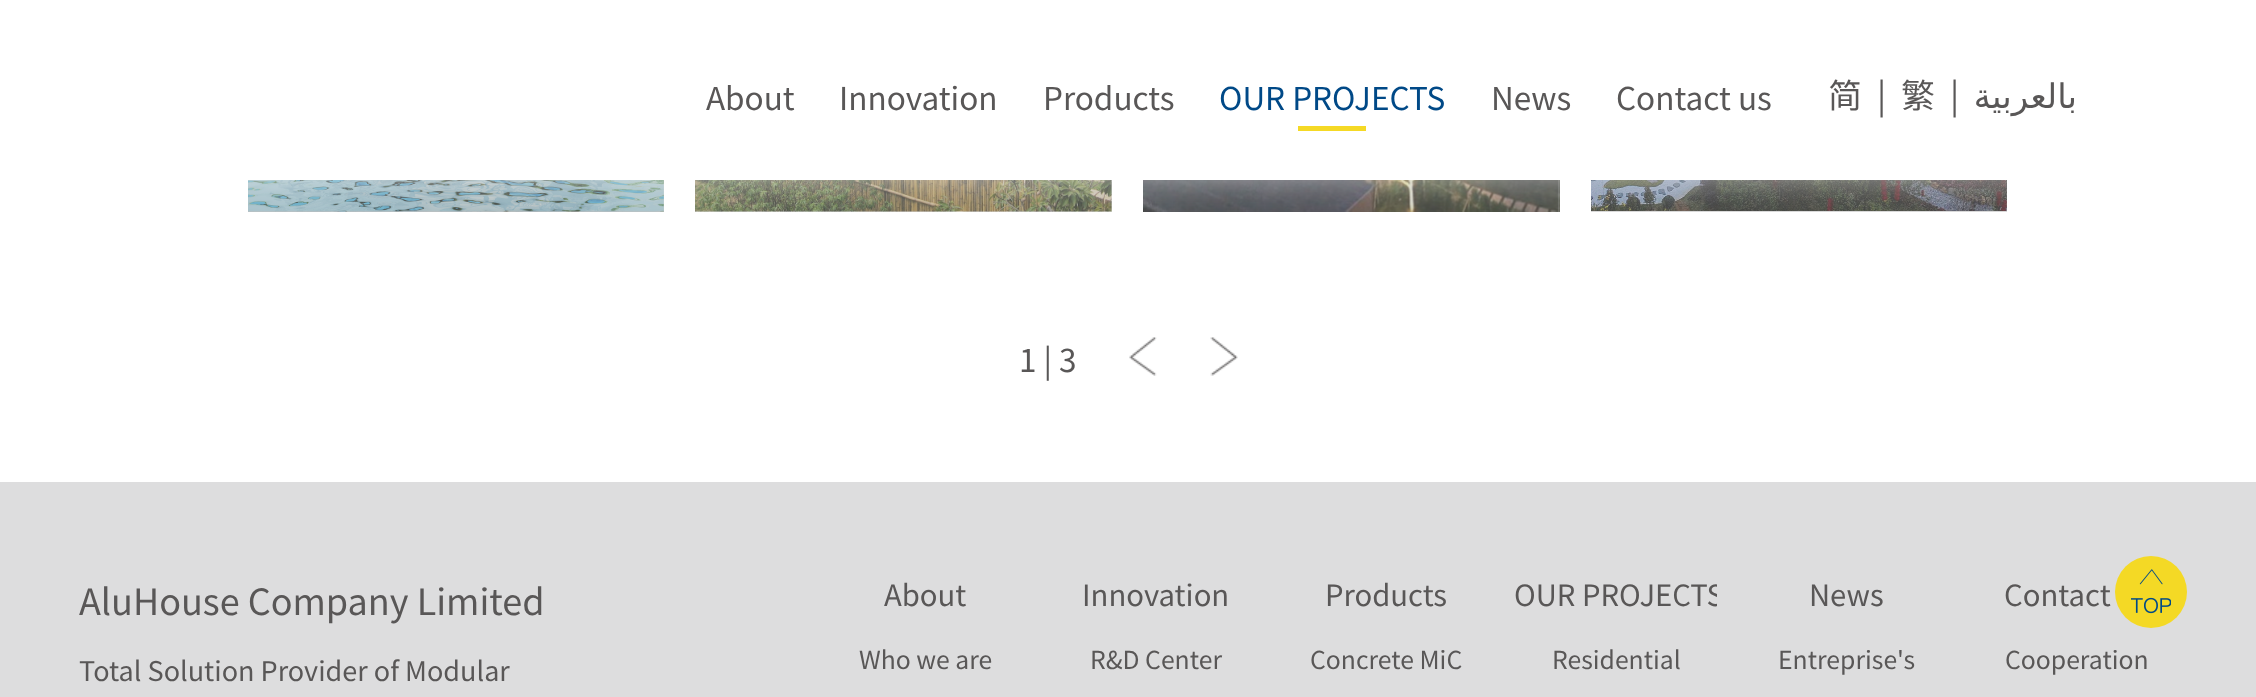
<!DOCTYPE html>
<meta charset="utf-8">
<style>body { margin: 0 } canvas { display: block }</style>
<canvas id="canvas" width="2256" height="697"></canvas>
<script type="module">
  const canvas = document.getElementById("canvas");
  const ctx = canvas.getContext("2d");
  ctx.miterLimit = 4;
  ctx.fontKerning = "normal";
  async function loadImage(src) {
    const img = new Image();
    img.src = src;
    await img.decode();
    return img;
  }

  ctx.fillStyle = "#ffffff";
  ctx.fillRect(0, 0, 2256, 697);
  ctx.fillStyle = "#d9d9d9";
  ctx.fillRect(1591, 180, 416, 32);
  ctx.fillRect(695, 180, 417, 32);
  ctx.fillRect(248, 180, 416, 32);
  ctx.drawImage(await loadImage("img1.png"), 248, 180, 416, 32);
  ctx.drawImage(await loadImage("img2.png"), 695, 180, 417, 32);
  ctx.drawImage(await loadImage("img3.png"), 1143, 180, 417, 32);
  ctx.drawImage(await loadImage("img4.png"), 1591, 180, 416, 31);
  ctx.fillStyle = "rgba(255, 255, 255, 0.5)";
  ctx.filter = "blur(17px)";
  ctx.beginPath();
  ctx.rect(0, 0, 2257, 180);
  ctx.fill();
  ctx.filter = "none";
  ctx.font = "31.5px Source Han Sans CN";
  ctx.fillStyle = "#595757";
  ctx.fillText("About", 706, 110);
  ctx.fillText("Innovation", 839, 110);
  ctx.fillText("Products", 1043, 110);
  ctx.fillStyle = "#004987";
  ctx.fillText("OUR PROJECTS", 1219, 110);
  ctx.fillStyle = "#f5d925";
  ctx.fillRect(1298, 126, 68, 5);
  ctx.fillStyle = "#595757";
  ctx.fillText("News", 1491, 110);
  ctx.fillText("Contact us", 1616, 110);
  ctx.font = "34px Source Han Sans CN";
  ctx.fillText("简", 1828, 108);
  ctx.fillText("|", 1877, 108);
  ctx.fillText("繁", 1901, 108);
  ctx.fillText("|", 1950, 108);
  ctx.direction = "rtl";
  ctx.font = "34px DejaVu Sans";
  ctx.fillText("بالعربية", 2077, 108);
  ctx.direction = "ltr";
  ctx.font = "31.5px Source Han Sans CN";
  ctx.fillText("1 | 3", 1019, 372);
  ctx.drawImage(await loadImage("img5.png"), 1129, 337, 28, 39);
  ctx.drawImage(await loadImage("img6.png"), 1210, 337, 28, 39);
  ctx.fillStyle = "#ddddde";
  ctx.fillRect(0, 482, 2256, 215);
  ctx.font = "36px Source Han Sans CN";
  ctx.fillStyle = "#595757";
  ctx.fillText("AluHouse Company Limited", 79, 615);
  ctx.font = "27px Source Han Sans CN";
  ctx.fillText("Total Solution Provider of Modular", 79, 681);
  ctx.font = "29.25px Source Han Sans CN";
  ctx.fillText("About", 884, 606);
  ctx.font = "24.75px Source Han Sans CN";
  ctx.fillText("Who we are", 859, 669);
  ctx.font = "29.25px Source Han Sans CN";
  ctx.fillText("Innovation", 1082, 606);
  ctx.font = "24.75px Source Han Sans CN";
  ctx.fillText("R&D Center", 1090, 669);
  ctx.font = "29.25px Source Han Sans CN";
  ctx.fillText("Products", 1325, 606);
  ctx.font = "24.75px Source Han Sans CN";
  ctx.fillText("Concrete MiC", 1310, 669);
  ctx.save();
  ctx.beginPath();
  ctx.rect(1514, 572, 203, 42);
  ctx.clip();
  ctx.font = "29.25px Source Han Sans CN";
  ctx.fillText("OUR PROJECTS", 1514, 606);
  ctx.restore();
  ctx.fillText("Residential", 1552, 669);
  ctx.font = "29.25px Source Han Sans CN";
  ctx.fillText("News", 1809, 606);
  ctx.font = "24.75px Source Han Sans CN";
  ctx.fillText("Entreprise's", 1778, 669);
  ctx.font = "29.25px Source Han Sans CN";
  ctx.fillText("Contact", 2004, 606);
  ctx.font = "24.75px Source Han Sans CN";
  ctx.fillText("Cooperation", 2005, 669);
  ctx.fillStyle = "#f4d925";
  ctx.beginPath();
  ctx.arc(2151, 592, 36, 0, Math.PI * 2);
  ctx.fill();
  ctx.drawImage(await loadImage("img7.png"), 2131, 569, 40, 45);
</script>
